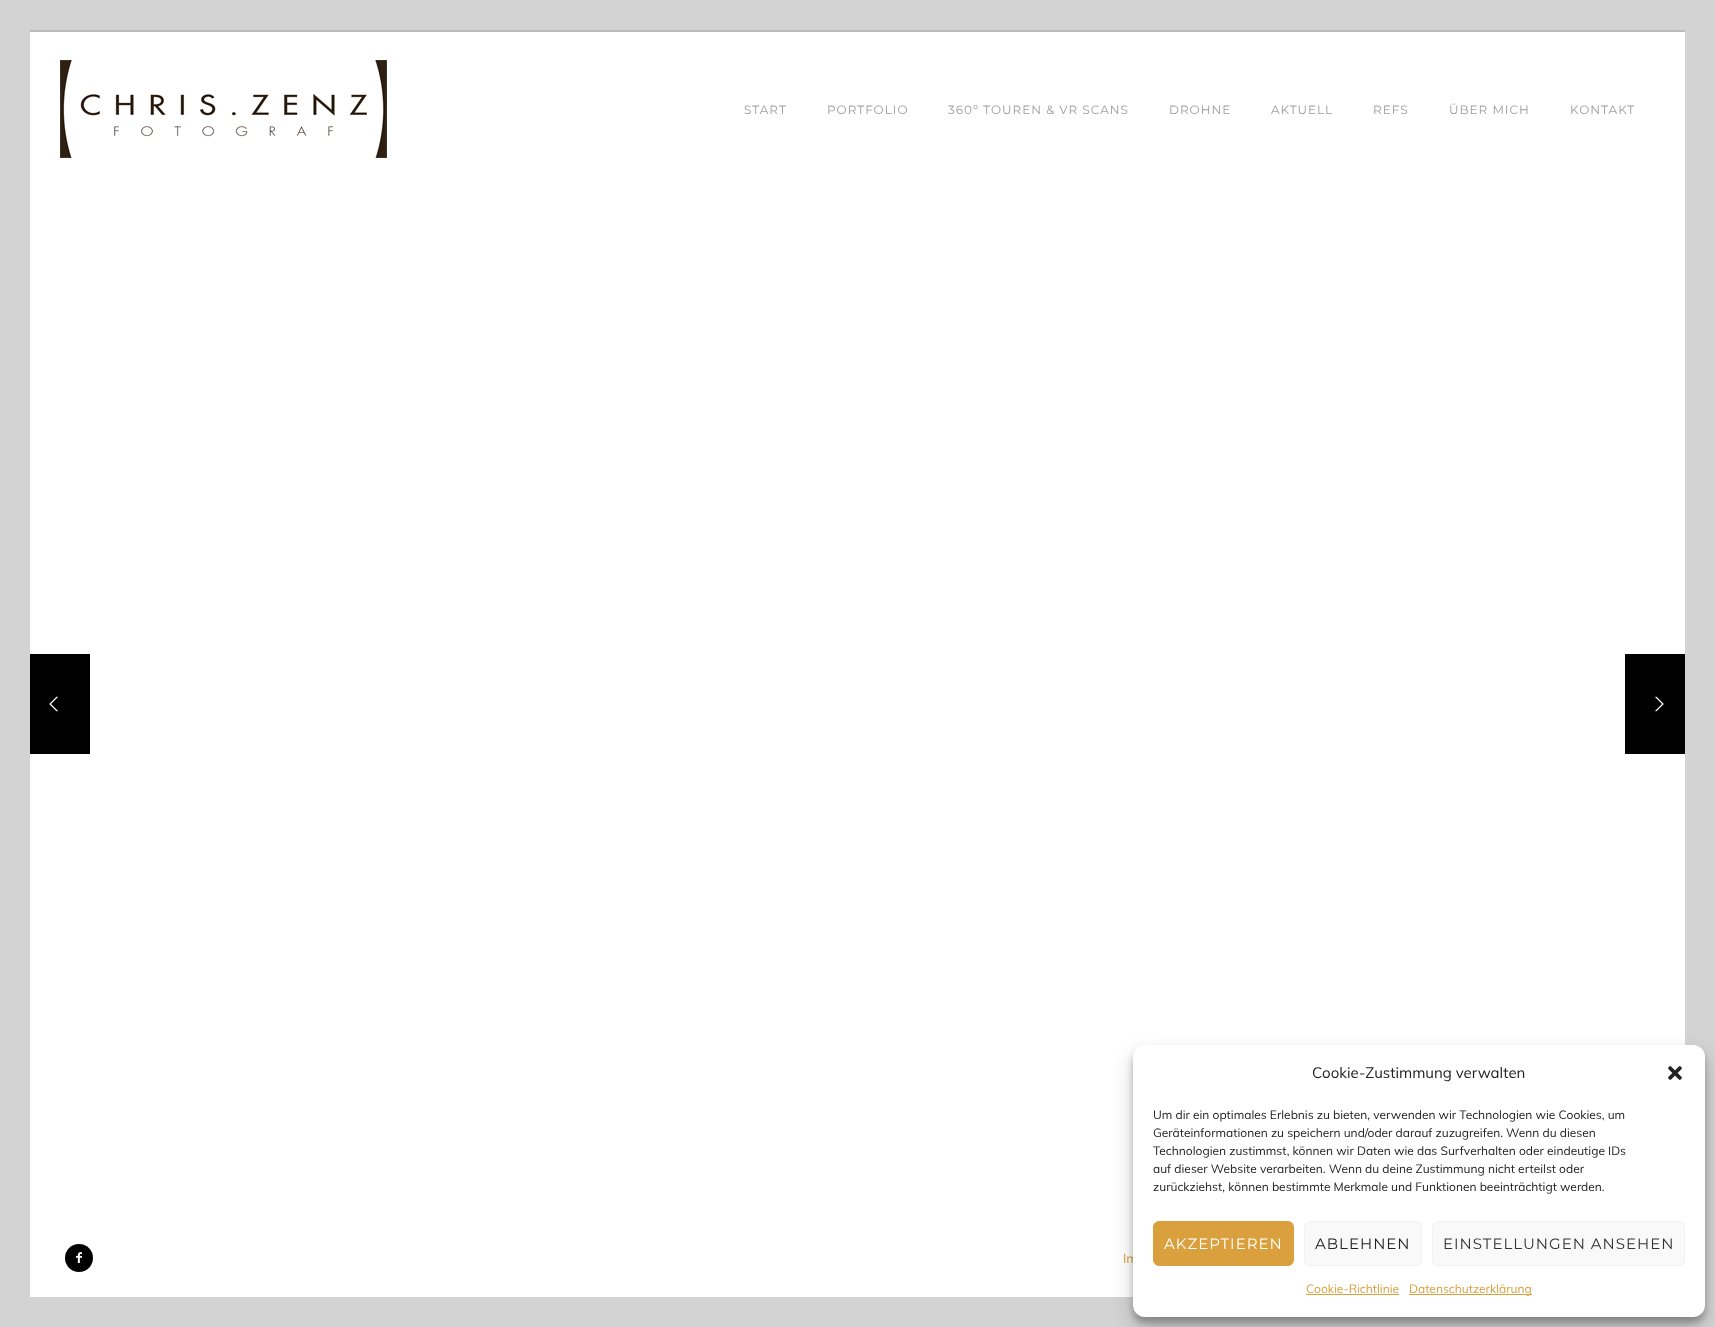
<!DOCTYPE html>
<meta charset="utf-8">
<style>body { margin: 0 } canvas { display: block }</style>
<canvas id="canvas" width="1715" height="1327"></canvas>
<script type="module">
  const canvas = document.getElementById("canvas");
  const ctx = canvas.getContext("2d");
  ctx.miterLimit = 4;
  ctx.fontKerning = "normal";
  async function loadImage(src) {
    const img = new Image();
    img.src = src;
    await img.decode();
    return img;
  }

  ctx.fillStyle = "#ffffff";
  ctx.fillRect(0, 0, 1715, 1327);
  ctx.fillStyle = "#d3d3d3";
  ctx.fillRect(0, 0, 30, 1327);
  ctx.fillRect(30, 0, 1655, 30);
  ctx.fillRect(1685, 0, 30, 1297);
  ctx.fillRect(30, 1297, 1685, 30);
  ctx.drawImage(await loadImage("img1.png"), 60, 60, 327, 98);
  ctx.fillStyle = "#bbbbbb";
  ctx.fillRect(30, 30, 1655, 2);
  ctx.letterSpacing = "1px";
  ctx.font = "100 12px Montserrat";
  ctx.fillStyle = "#9c9c9c";
  ctx.fillText("START", 744, 114);
  ctx.fillText("PORTFOLIO", 827, 114);
  ctx.fillText("360º TOUREN & VR SCANS", 948, 114);
  ctx.fillText("DROHNE", 1169, 114);
  ctx.fillText("AKTUELL", 1271, 114);
  ctx.fillText("REFS", 1373, 114);
  ctx.fillText("ÜBER MICH", 1449, 114);
  ctx.fillText("KONTAKT", 1570, 114);
  ctx.fillStyle = "#000000";
  ctx.fillRect(30, 654, 60, 100);
  ctx.drawImage(await loadImage("img2.png"), 49, 696, 9, 16);
  ctx.fillRect(1625, 654, 60, 100);
  ctx.drawImage(await loadImage("img3.png"), 1655, 696, 9, 16);
  ctx.beginPath();
  ctx.arc(79, 1258, 14, 0, Math.PI * 2);
  ctx.fill();
  ctx.drawImage(await loadImage("img4.png"), 76, 1252, 6, 11);
  ctx.letterSpacing = "0px";
  ctx.font = "13px Muli";
  ctx.fillStyle = "#daa03d";
  ctx.fillText("Im", 1123, 1263);
  ctx.fillStyle = "rgba(0, 0, 0, 0.23)";
  ctx.filter = "blur(3px)";
  ctx.beginPath();
  ctx.roundRect(1133, 1051, 572, 272, 12);
  ctx.fill();
  ctx.filter = "none";
  ctx.fillStyle = "rgba(0, 0, 0, 0.19)";
  ctx.filter = "blur(10px)";
  ctx.beginPath();
  ctx.roundRect(1133, 1055, 572, 272, 12);
  ctx.fill();
  ctx.filter = "none";
  ctx.fillStyle = "#ffffff";
  ctx.beginPath();
  ctx.roundRect(1133, 1045, 572, 272, 12);
  ctx.fill();
  ctx.font = "15px Muli";
  ctx.fillStyle = "#222222";
  ctx.fillText("Cookie-Zustimmung verwalten", 1312, 1078);
  ctx.drawImage(await loadImage("img5.png"), 1668, 1066, 14, 14);
  ctx.font = "12px Muli";
  ctx.fillText("Um dir ein optimales Erlebnis zu bieten, verwenden wir Technologien wie Cookies, um", 1153, 1119);
  ctx.fillText("Geräteinformationen zu speichern und/oder darauf zuzugreifen. Wenn du diesen", 1153, 1137);
  ctx.fillText("Technologien zustimmst, können wir Daten wie das Surfverhalten oder eindeutige IDs", 1153, 1155);
  ctx.fillText("auf dieser Website verarbeiten. Wenn du deine Zustimmung nicht erteilst oder", 1153, 1173);
  ctx.fillText("zurückziehst, können bestimmte Merkmale und Funktionen beeinträchtigt werden.", 1153, 1191);
  ctx.fillStyle = "#daa03d";
  ctx.beginPath();
  ctx.roundRect(1153.5, 1221.5, 140, 44, 5.5);
  ctx.fill();
  ctx.strokeStyle = "#daa03d";
  ctx.stroke();
  ctx.letterSpacing = "1px";
  ctx.font = "100 15px Montserrat";
  ctx.fillStyle = "#ffffff";
  ctx.fillText("AKZEPTIEREN", 1164, 1249);
  ctx.fillStyle = "#f9f9f9";
  ctx.beginPath();
  ctx.roundRect(1304.5, 1221.5, 117, 44, 5.5);
  ctx.fill();
  ctx.strokeStyle = "#f2f2f2";
  ctx.stroke();
  ctx.fillStyle = "#222222";
  ctx.fillText("ABLEHNEN", 1315, 1249);
  ctx.fillStyle = "#f9f9f9";
  ctx.beginPath();
  ctx.roundRect(1432.5, 1221.5, 252, 44, 5.5);
  ctx.fill();
  ctx.stroke();
  ctx.fillStyle = "#333333";
  ctx.fillText("EINSTELLUNGEN ANSEHEN", 1443, 1249);
  ctx.letterSpacing = "0px";
  ctx.font = "12px Muli";
  ctx.fillStyle = "#daa03d";
  ctx.fillText("Cookie-Richtlinie", 1306, 1293);
  ctx.fillRect(1306, 1294, 93, 1);
  ctx.fillRect(1409, 1294, 123, 1);
  ctx.fillText("Datenschutzerklärung", 1409, 1293);
</script>
